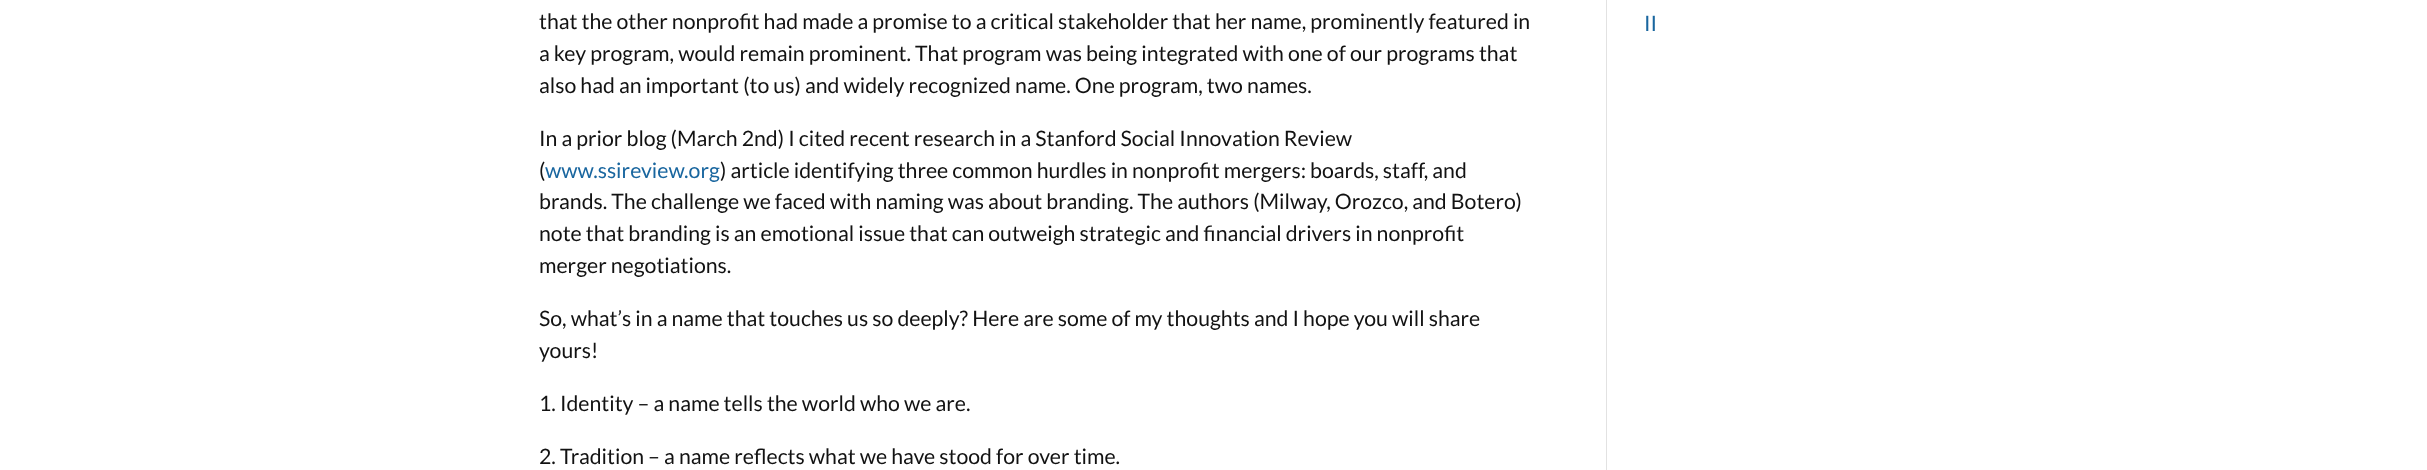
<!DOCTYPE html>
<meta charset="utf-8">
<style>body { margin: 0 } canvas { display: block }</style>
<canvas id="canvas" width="2427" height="470"></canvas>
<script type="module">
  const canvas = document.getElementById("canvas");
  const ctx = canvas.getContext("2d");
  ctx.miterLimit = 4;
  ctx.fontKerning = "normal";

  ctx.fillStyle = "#ffffff";
  ctx.fillRect(0, 0, 2427, 470);
  ctx.fillStyle = "#e2e2e2";
  ctx.fillRect(1606, 0, 1, 470);
  ctx.font = "21.25px Lato";
  ctx.fillStyle = "#121212";
  ctx.fillText("that the other nonprofit had made a promise to a critical stakeholder that her name, prominently featured in", 539, 29);
  ctx.fillText("a key program, would remain prominent. That program was being integrated with one of our programs that", 539, 61);
  ctx.fillText("also had an important (to us) and widely recognized name. One program, two names.", 539, 93);
  ctx.fillText("In a prior blog (March 2nd) I cited recent research in a Stanford Social Innovation Review", 539, 146);
  ctx.fillText("(", 539, 178);
  ctx.fillStyle = "#19669f";
  ctx.fillText("www.ssireview.org", 545, 178);
  ctx.fillStyle = "#121212";
  ctx.fillText(") article identifying three common hurdles in nonprofit mergers: boards, staff, and", 720, 178);
  ctx.fillText("brands. The challenge we faced with naming was about branding. The authors (Milway, Orozco, and Botero)", 539, 209);
  ctx.fillText("note that branding is an emotional issue that can outweigh strategic and financial drivers in nonprofit", 539, 241);
  ctx.fillText("merger negotiations.", 539, 273);
  ctx.fillText("So, what’s in a name that touches us so deeply? Here are some of my thoughts and I hope you will share", 539, 326);
  ctx.fillText("yours!", 539, 358);
  ctx.fillText("1. Identity – a name tells the world who we are.", 539, 411);
  ctx.fillText("2. Tradition – a name reflects what we have stood for over time.", 539, 464);
  ctx.fillStyle = "#19669f";
  ctx.fillText("II", 1644, 31);
</script>
